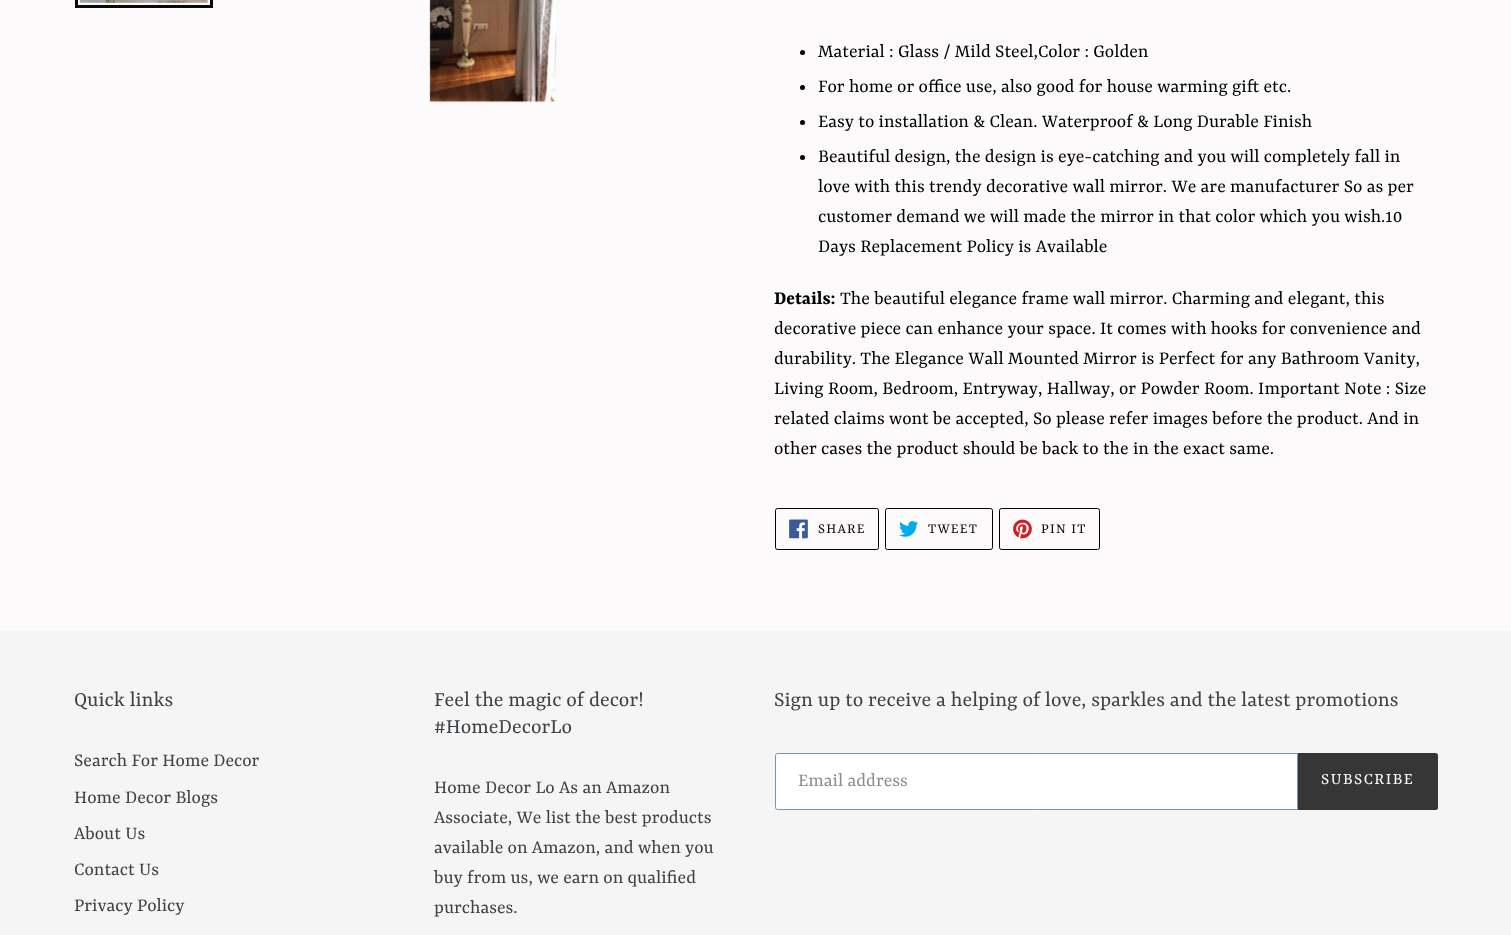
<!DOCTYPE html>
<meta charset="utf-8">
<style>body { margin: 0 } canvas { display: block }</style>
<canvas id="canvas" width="1511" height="935"></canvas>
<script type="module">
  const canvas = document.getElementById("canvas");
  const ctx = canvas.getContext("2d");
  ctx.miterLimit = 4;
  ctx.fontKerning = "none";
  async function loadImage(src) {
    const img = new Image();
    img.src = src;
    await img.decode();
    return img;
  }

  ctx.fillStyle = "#fcfafa";
  ctx.fillRect(0, 0, 1511, 935);
  ctx.strokeStyle = "#09090a";
  ctx.lineWidth = 3;
  ctx.strokeRect(76.5, -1.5, 135, 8);
  ctx.drawImage(await loadImage("img1.png"), 79, 0, 129, 3);
  ctx.drawImage(await loadImage("img2.png"), 429, 0, 128, 103);
  ctx.fillStyle = "#000000";
  ctx.beginPath();
  ctx.arc(802.5, 52.5, 2.5, 0, Math.PI * 2);
  ctx.fill();
  ctx.font = "20px Yrsa";
  ctx.fillText("Material : Glass / Mild Steel,Color : Golden", 818, 57);
  ctx.beginPath();
  ctx.arc(802.5, 87.5, 2.5, 0, Math.PI * 2);
  ctx.fill();
  ctx.fillText("For home or office use, also good for house warming gift etc.", 818, 92);
  ctx.beginPath();
  ctx.arc(802.5, 122.5, 2.5, 0, Math.PI * 2);
  ctx.fill();
  ctx.fillText("Easy to installation & Clean. Waterproof & Long Durable Finish", 818, 127);
  ctx.beginPath();
  ctx.arc(802.5, 157.5, 2.5, 0, Math.PI * 2);
  ctx.fill();
  ctx.fillText("Beautiful design, the design is eye-catching and you will completely fall in", 818, 162);
  ctx.fillText("love with this trendy decorative wall mirror. We are", 818, 192);
  ctx.fillText("manufacturer So as per", 1230, 192);
  ctx.fillText("customer demand we will made the mirror in that color which you wish.10", 818, 222);
  ctx.fillText("Days Replacement Policy is Available", 818, 252);
  ctx.font = "bold 20px Yrsa";
  ctx.fillText("Details:", 774, 304);
  ctx.font = "20px Yrsa";
  ctx.fillText("The beautiful elegance frame wall mirror. Charming and elegant, this", 840, 304);
  ctx.fillText("decorative piece can enhance your space. It comes with hooks for convenience and", 774, 334);
  ctx.fillText("durability. The Elegance Wall Mounted Mirror is Perfect", 774, 364);
  ctx.fillText("for any Bathroom Vanity,", 1220, 364);
  ctx.fillText("Living Room, Bedroom, Entryway, Hallway, or Powder", 774, 394);
  ctx.fillText("Room. Important Note : Size", 1204, 394);
  ctx.fillText("related claims wont be accepted, So please refer images before the product. And in", 774, 424);
  ctx.fillText("other cases the product should be back to the in the exact same.", 774, 454);
  ctx.beginPath();
  ctx.roundRect(775.5, 508.5, 103, 41, 2);
  ctx.strokeStyle = "#000000";
  ctx.lineWidth = 1;
  ctx.stroke();
  ctx.drawImage(await loadImage("img3.png"), 789, 519, 19, 20);
  ctx.letterSpacing = "1.25px";
  ctx.font = "15px Rasa";
  ctx.fillStyle = "#09090a";
  ctx.fillText("SHARE", 818, 533);
  ctx.beginPath();
  ctx.roundRect(885.5, 508.5, 107, 41, 2);
  ctx.stroke();
  ctx.drawImage(await loadImage("img4.png"), 899, 521, 20, 16);
  ctx.fillText("TWEET", 928, 533);
  ctx.beginPath();
  ctx.roundRect(999.5, 508.5, 100, 41, 2);
  ctx.stroke();
  ctx.drawImage(await loadImage("img5.png"), 1013, 519, 19, 20);
  ctx.fillText("PIN IT", 1041, 533);
  ctx.fillStyle = "#f5f5f5";
  ctx.fillRect(0, 631, 1511, 304);
  ctx.letterSpacing = "0px";
  ctx.font = "22.5px Rasa";
  ctx.fillStyle = "#3d4246";
  ctx.fillText("Quick links", 74, 706);
  ctx.font = "20px Yrsa";
  ctx.fillText("Search For Home Decor", 74, 766);
  ctx.fillText("Home Decor Blogs", 74, 803);
  ctx.fillText("About Us", 74, 839);
  ctx.fillText("Contact Us", 74, 875);
  ctx.fillText("Privacy Policy", 74, 911);
  ctx.font = "22.5px Rasa";
  ctx.fillText("Feel the magic of decor!", 434, 706);
  ctx.fillText("#HomeDecorLo", 434, 733);
  ctx.font = "20px Yrsa";
  ctx.fillText("Home Decor Lo As an Amazon", 434, 793);
  ctx.fillText("Associate, We list the best products", 434, 823);
  ctx.fillText("available on Amazon, and when you", 434, 853);
  ctx.fillText("buy from us, we earn on qualified", 434, 883);
  ctx.fillText("purchases.", 434, 913);
  ctx.font = "22.5px Rasa";
  ctx.fillText("Sign up to receive a helping of love, sparkles and the latest promotions", 774, 706);
  ctx.fillStyle = "#ffffff";
  ctx.beginPath();
  ctx.roundRect(775.5, 753.5, 522, 56, [2, 0, 0, 2]);
  ctx.fill();
  ctx.strokeStyle = "#7796a8";
  ctx.stroke();
  ctx.font = "20px Yrsa";
  ctx.fillStyle = "#8b8e90";
  ctx.fillText("Email address", 798, 786);
  ctx.fillStyle = "#363637";
  ctx.beginPath();
  ctx.roundRect(1298, 753, 140, 57, [0, 2.5, 2.5, 0]);
  ctx.fill();
  ctx.letterSpacing = "1.5px";
  ctx.font = "17.5px Rasa";
  ctx.fillStyle = "#ffffff";
  ctx.fillText("SUBSCRIBE", 1321, 784);
</script>
